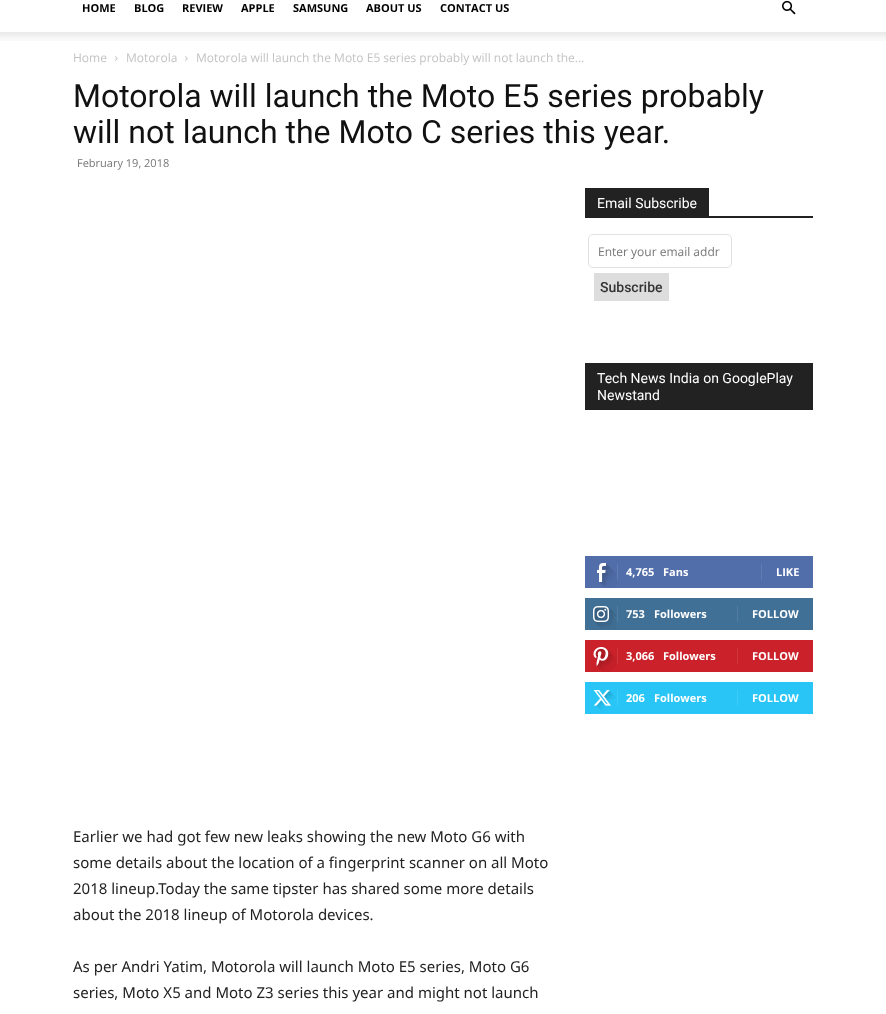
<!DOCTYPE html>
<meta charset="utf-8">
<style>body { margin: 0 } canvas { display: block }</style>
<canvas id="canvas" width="886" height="1014"></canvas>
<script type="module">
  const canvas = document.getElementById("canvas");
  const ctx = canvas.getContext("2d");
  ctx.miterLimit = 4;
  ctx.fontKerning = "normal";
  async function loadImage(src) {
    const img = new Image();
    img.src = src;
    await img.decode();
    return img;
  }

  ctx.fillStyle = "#ffffff";
  ctx.fillRect(0, 0, 886, 1014);
  ctx.font = "bold 11px Open Sans";
  ctx.fillStyle = "#000000";
  ctx.fillText("HOME", 82, 12);
  ctx.fillText("BLOG", 134, 12);
  ctx.fillText("REVIEW", 182, 12);
  ctx.fillText("APPLE", 241, 12);
  ctx.fillText("SAMSUNG", 293, 12);
  ctx.fillText("ABOUT US", 366, 12);
  ctx.fillText("CONTACT US", 440, 12);
  ctx.drawImage(await loadImage("img1.png"), 782, 0, 14, 15);
  ctx.drawImage(await loadImage("img2.png"), 0, 32, 886, 9);
  ctx.font = "12px Open Sans";
  ctx.fillStyle = "#c3c3c3";
  ctx.fillText("Home", 73, 62);
  ctx.drawImage(await loadImage("img3.png"), 115, 56, 3, 5);
  ctx.fillText("Motorola", 126, 62);
  ctx.drawImage(await loadImage("img3.png"), 185, 56, 3, 5);
  ctx.fillText("Motorola will launch the Moto E5 series probably will not launch the...", 196, 62);
  ctx.font = "32px Roboto";
  ctx.fillStyle = "#111111";
  ctx.fillText("Motorola will launch the Moto E5 series probably", 73, 107);
  ctx.fillText("will not launch the Moto C series this year.", 73, 143);
  ctx.font = "11px Open Sans";
  ctx.fillStyle = "#767676";
  ctx.fillText("February 19, 2018", 77, 167);
  ctx.fillStyle = "#222222";
  ctx.fillRect(585, 216, 228, 2);
  ctx.fillRect(585, 188, 124, 28);
  ctx.font = "14px Roboto";
  ctx.fillStyle = "#ffffff";
  ctx.fillText("Email Subscribe", 597, 208);
  ctx.beginPath();
  ctx.roundRect(588.5, 234.5, 143, 33, 4.5);
  ctx.strokeStyle = "#e1e1e1";
  ctx.stroke();
  ctx.font = "12px Open Sans";
  ctx.fillStyle = "#767676";
  ctx.fillText("Enter your email addr", 598, 256);
  ctx.fillStyle = "#dddddd";
  ctx.fillRect(594, 273, 75, 28);
  ctx.font = "500 14px Roboto";
  ctx.fillStyle = "#333333";
  ctx.fillText("Subscribe", 600, 292);
  ctx.fillStyle = "#222222";
  ctx.fillRect(585, 363, 228, 47);
  ctx.font = "14px Roboto";
  ctx.fillStyle = "#ffffff";
  ctx.fillText("Tech News India on GooglePlay", 597, 383);
  ctx.fillText("Newstand", 597, 400);
  ctx.fillStyle = "#516eab";
  ctx.fillRect(585, 556, 228, 32);
  ctx.drawImage(await loadImage("img4.png"), 597, 563, 20, 25);
  ctx.fillStyle = "#627db3";
  ctx.fillRect(617, 564, 1, 16);
  ctx.font = "bold 11px Open Sans";
  ctx.fillStyle = "#ffffff";
  ctx.fillText("4,765", 626, 576);
  ctx.fillText("Fans", 663, 576);
  ctx.fillStyle = "#627db3";
  ctx.fillRect(761, 564, 1, 16);
  ctx.fillStyle = "#ffffff";
  ctx.fillText("LIKE", 776, 576);
  ctx.fillStyle = "#417096";
  ctx.fillRect(585, 598, 228, 32);
  ctx.drawImage(await loadImage("img5.png"), 593, 606, 23, 23);
  ctx.fillStyle = "#547ea1";
  ctx.fillRect(617, 606, 1, 16);
  ctx.fillStyle = "#ffffff";
  ctx.fillText("753", 626, 618);
  ctx.fillText("Followers", 654, 618);
  ctx.fillStyle = "#547ea1";
  ctx.fillRect(737, 606, 1, 16);
  ctx.fillStyle = "#ffffff";
  ctx.fillText("FOLLOW", 752, 618);
  ctx.fillStyle = "#ca212a";
  ctx.fillRect(585, 640, 228, 32);
  ctx.drawImage(await loadImage("img6.png"), 590, 647, 27, 25);
  ctx.fillStyle = "#cf373f";
  ctx.fillRect(617, 648, 1, 16);
  ctx.fillStyle = "#ffffff";
  ctx.fillText("3,066", 626, 660);
  ctx.fillText("Followers", 663, 660);
  ctx.fillStyle = "#cf373f";
  ctx.fillRect(737, 648, 1, 16);
  ctx.fillStyle = "#ffffff";
  ctx.fillText("FOLLOW", 752, 660);
  ctx.fillStyle = "#29c5f6";
  ctx.fillRect(585, 682, 228, 32);
  ctx.drawImage(await loadImage("img7.png"), 593, 690, 23, 21);
  ctx.fillStyle = "#3ecbf7";
  ctx.fillRect(617, 690, 1, 16);
  ctx.fillStyle = "#ffffff";
  ctx.fillText("206", 626, 702);
  ctx.fillText("Followers", 654, 702);
  ctx.fillStyle = "#3ecbf7";
  ctx.fillRect(737, 690, 1, 16);
  ctx.fillStyle = "#ffffff";
  ctx.fillText("FOLLOW", 752, 702);
  ctx.font = "15px Noto Sans";
  ctx.fillStyle = "#222222";
  ctx.fillText("Earlier we had got few new leaks showing the new Moto G6 with", 73, 842);
  ctx.fillText("some details about the location of a fingerprint scanner on all Moto", 73, 868);
  ctx.fillText("2018 lineup.Today the same tipster has shared some more details", 73, 894);
  ctx.fillText("about the 2018 lineup of Motorola devices.", 73, 920);
  ctx.fillText("As per Andri Yatim, Motorola will launch Moto E5 series, Moto G6", 73, 972);
  ctx.fillText("series, Moto X5 and Moto Z3 series this year and might not launch", 73, 998);
</script>
